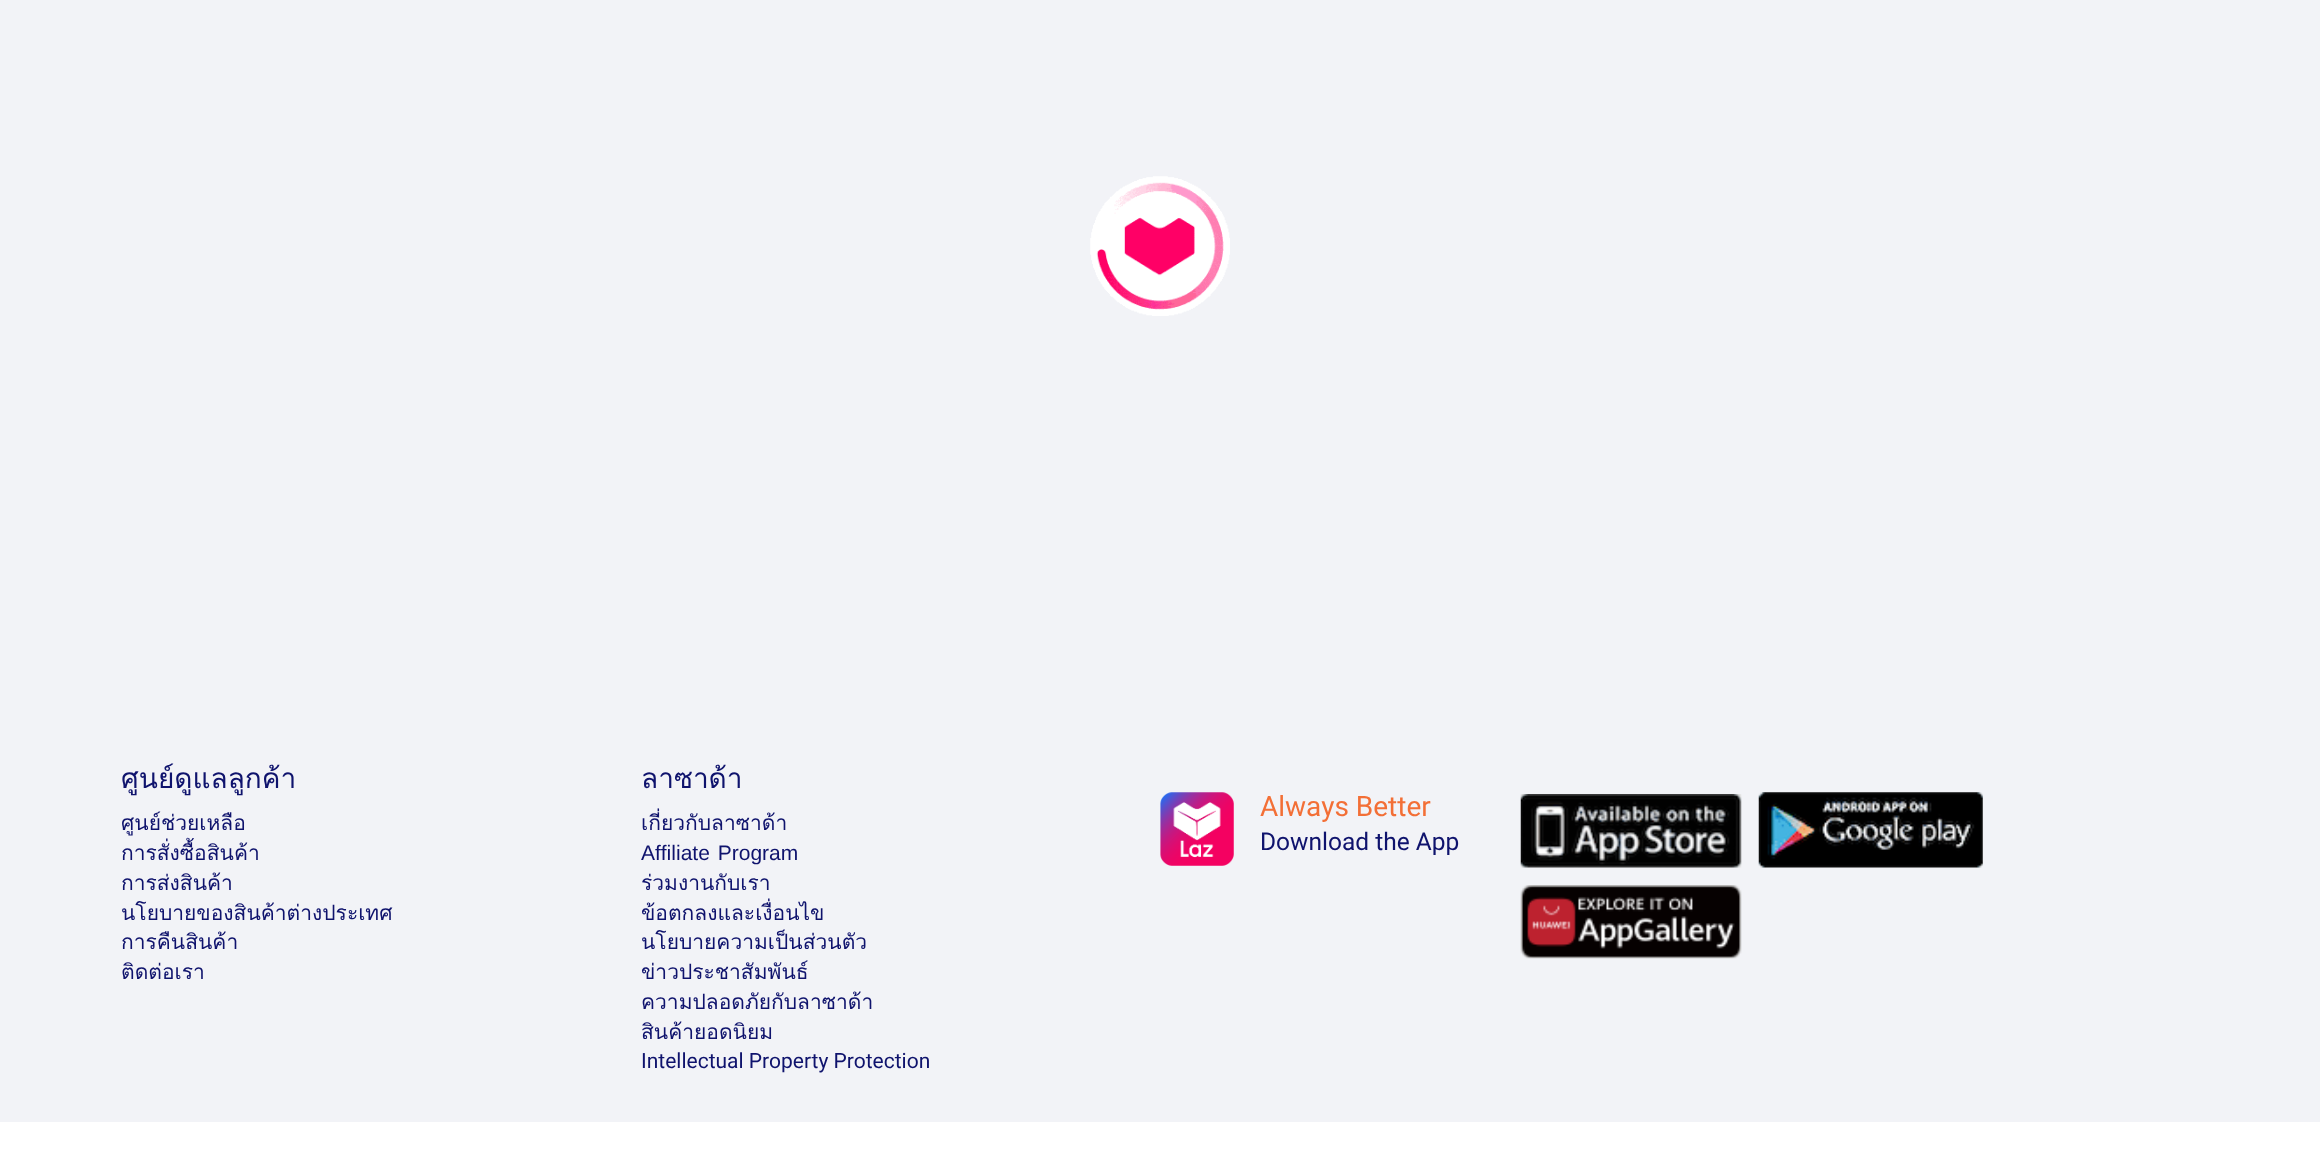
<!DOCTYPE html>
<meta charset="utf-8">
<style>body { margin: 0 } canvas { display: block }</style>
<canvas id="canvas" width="2320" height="1166"></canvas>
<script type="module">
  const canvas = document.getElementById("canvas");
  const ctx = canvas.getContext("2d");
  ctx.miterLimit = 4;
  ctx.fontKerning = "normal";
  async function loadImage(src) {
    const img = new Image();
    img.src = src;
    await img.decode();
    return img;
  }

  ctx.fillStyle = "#f2f3f7";
  ctx.fillRect(0, 0, 2320, 1166);
  ctx.drawImage(await loadImage("img1.png"), 1090, 176, 140, 140);
  ctx.save();
  ctx.beginPath();
  ctx.rect(121, 749, 520, 240);
  ctx.clip();
  ctx.font = "28px Loma";
  ctx.fillStyle = "#0f136d";
  ctx.fillText("ศูนย์ดูแลลูกค้า", 121, 788);
  ctx.font = "21px Loma";
  ctx.fillText("ศูนย์ช่วยเหลือ", 121, 830);
  ctx.restore();
  ctx.font = "21px Loma";
  ctx.fillStyle = "#0f136d";
  ctx.fillText("การสั่งซื้อสินค้า", 121, 860);
  ctx.fillText("การส่งสินค้า", 121, 890);
  ctx.fillText("นโยบายของสินค้าต่างประเทศ", 121, 920);
  ctx.fillText("การคืนสินค้า", 121, 949);
  ctx.save();
  ctx.beginPath();
  ctx.rect(121, 749, 520, 240);
  ctx.clip();
  ctx.fillText("ติดต่อเรา", 121, 979);
  ctx.restore();
  ctx.font = "28px Loma";
  ctx.fillText("ลาซาด้า", 641, 788);
  ctx.save();
  ctx.beginPath();
  ctx.rect(641, 749, 519, 329);
  ctx.clip();
  ctx.font = "21px Loma";
  ctx.fillText("เกี่ยวกับลาซาด้า", 641, 830);
  ctx.restore();
  ctx.wordSpacing = "2px";
  ctx.font = "21px Liberation Sans";
  ctx.fillText("Afﬁliate Program", 641, 860);
  ctx.save();
  ctx.beginPath();
  ctx.rect(641, 749, 519, 329);
  ctx.clip();
  ctx.wordSpacing = "0px";
  ctx.font = "21px Loma";
  ctx.fillText("ร่วมงานกับเรา", 641, 890);
  ctx.fillText("ข้อตกลงและเงื่อนไข", 641, 920);
  ctx.restore();
  ctx.wordSpacing = "0px";
  ctx.font = "21px Loma";
  ctx.fillText("นโยบายความเป็นส่วนตัว", 641, 949);
  ctx.save();
  ctx.beginPath();
  ctx.rect(641, 749, 519, 329);
  ctx.clip();
  ctx.fillText("ข่าวประชาสัมพันธ์", 641, 979);
  ctx.restore();
  ctx.fillText("ความปลอดภัยกับลาซาด้า", 641, 1009);
  ctx.save();
  ctx.beginPath();
  ctx.rect(641, 749, 519, 329);
  ctx.clip();
  ctx.fillText("สินค้ายอดนิยม", 641, 1039);
  ctx.restore();
  ctx.font = "21px Roboto";
  ctx.fillText("Intellectual Property Protection", 641, 1068);
  ctx.drawImage(await loadImage("img2.png"), 1160, 792, 74, 74);
  ctx.font = "28px Roboto";
  ctx.fillStyle = "#f36f36";
  ctx.fillText("Always Better", 1260, 816);
  ctx.font = "24.5px Roboto";
  ctx.fillStyle = "#0f136d";
  ctx.fillText("Download the App", 1260, 850);
  ctx.drawImage(await loadImage("img3.png"), 1520, 794, 222, 74);
  ctx.drawImage(await loadImage("img4.png"), 1758, 792, 225, 76);
  ctx.drawImage(await loadImage("img5.png"), 1520, 885, 222, 74);
  ctx.fillStyle = "#ffffff";
  ctx.fillRect(0, 1122, 2320, 44);
</script>
